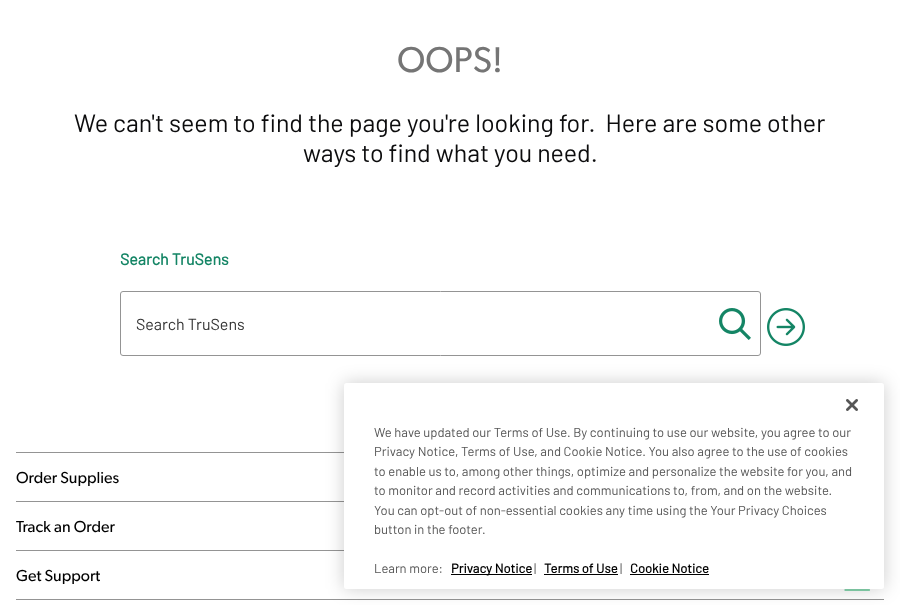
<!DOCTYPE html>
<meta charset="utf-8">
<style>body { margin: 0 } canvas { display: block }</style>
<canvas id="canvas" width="900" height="605"></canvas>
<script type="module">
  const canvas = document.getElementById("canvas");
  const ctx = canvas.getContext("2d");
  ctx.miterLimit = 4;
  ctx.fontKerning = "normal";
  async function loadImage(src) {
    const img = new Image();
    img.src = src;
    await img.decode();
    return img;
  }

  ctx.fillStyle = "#ffffff";
  ctx.fillRect(0, 0, 900, 605);
  ctx.font = "36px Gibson";
  ctx.fillStyle = "#757575";
  ctx.fillText("OOPS!", 397, 72);
  ctx.font = "25px Barlow";
  ctx.fillStyle = "#0c0c0d";
  ctx.fillText("We can't seem to find the page you're looking for.  Here are some other", 74, 132);
  ctx.fillText("ways to find what you need.", 303, 162);
  ctx.font = "bold 16px Barlow";
  ctx.fillStyle = "#148565";
  ctx.fillText("Search TruSens", 120, 265);
  ctx.beginPath();
  ctx.roundRect(120.5, 291.5, 640, 64, 2.5);
  ctx.strokeStyle = "#949494";
  ctx.stroke();
  ctx.font = "16px Barlow";
  ctx.fillStyle = "#333333";
  ctx.fillText("Search TruSens", 136, 330);
  ctx.drawImage(await loadImage("img1.png"), 719, 308, 32, 32);
  ctx.drawImage(await loadImage("img2.png"), 767, 308, 38, 38);
  ctx.fillStyle = "#949494";
  ctx.fillRect(16, 452, 328, 1);
  ctx.fillRect(16, 501, 328, 1);
  ctx.font = "16px Gibson";
  ctx.fillStyle = "#000000";
  ctx.fillText("Order Supplies", 16, 483);
  ctx.fillStyle = "#949494";
  ctx.fillRect(16, 550, 328, 1);
  ctx.fillStyle = "#000000";
  ctx.fillText("Track an Order", 16, 532);
  ctx.fillStyle = "#949494";
  ctx.fillRect(16, 599, 868, 1);
  ctx.fillStyle = "#000000";
  ctx.fillText("Get Support", 16, 581);
  ctx.drawImage(await loadImage("img3.png"), 844, 589, 26, 2);
  ctx.fillStyle = "rgba(0, 0, 0, 0.2)";
  ctx.filter = "blur(9px)";
  ctx.beginPath();
  ctx.roundRect(344, 383, 540, 206, 2.5);
  ctx.fill();
  ctx.filter = "none";
  ctx.fillStyle = "#ffffff";
  ctx.beginPath();
  ctx.roundRect(344, 383, 540, 206, 2.5);
  ctx.fill();
  ctx.drawImage(await loadImage("img4.png"), 846, 399, 12, 12);
  ctx.font = "13px Barlow";
  ctx.fillStyle = "#555555";
  ctx.fillText("We have updated our Terms of Use. By continuing to use our website, you agree to our", 374, 437);
  ctx.fillText("Privacy Notice, Terms of Use, and Cookie Notice. You also agree to the use of cookies", 374, 456);
  ctx.fillText("to enable us to, among other things, optimize and personalize the website for you, and", 374, 476);
  ctx.fillText("to monitor and record activities and communications to, from, and on the website.", 374, 495);
  ctx.fillText("You can opt-out of non-essential cookies any time using the Your Privacy Choices", 374, 515);
  ctx.fillText("button in the footer.", 374, 534);
  ctx.fillText("Learn more:", 374, 573);
  ctx.fillStyle = "#000000";
  ctx.fillRect(451, 574, 81, 1);
  ctx.font = "bold 13px Barlow";
  ctx.fillText("Privacy Notice", 451, 573);
  ctx.font = "13px Barlow";
  ctx.fillStyle = "#555555";
  ctx.fillText("|", 534, 573);
  ctx.font = "bold 13px Barlow";
  ctx.fillStyle = "#000000";
  ctx.fillText("Terms of Use", 544, 573);
  ctx.fillRect(544, 574, 74, 1);
  ctx.font = "13px Barlow";
  ctx.fillStyle = "#555555";
  ctx.fillText("|", 620, 573);
  ctx.font = "bold 13px Barlow";
  ctx.fillStyle = "#000000";
  ctx.fillText("Cookie Notice", 630, 573);
  ctx.fillRect(630, 574, 79, 1);
</script>
